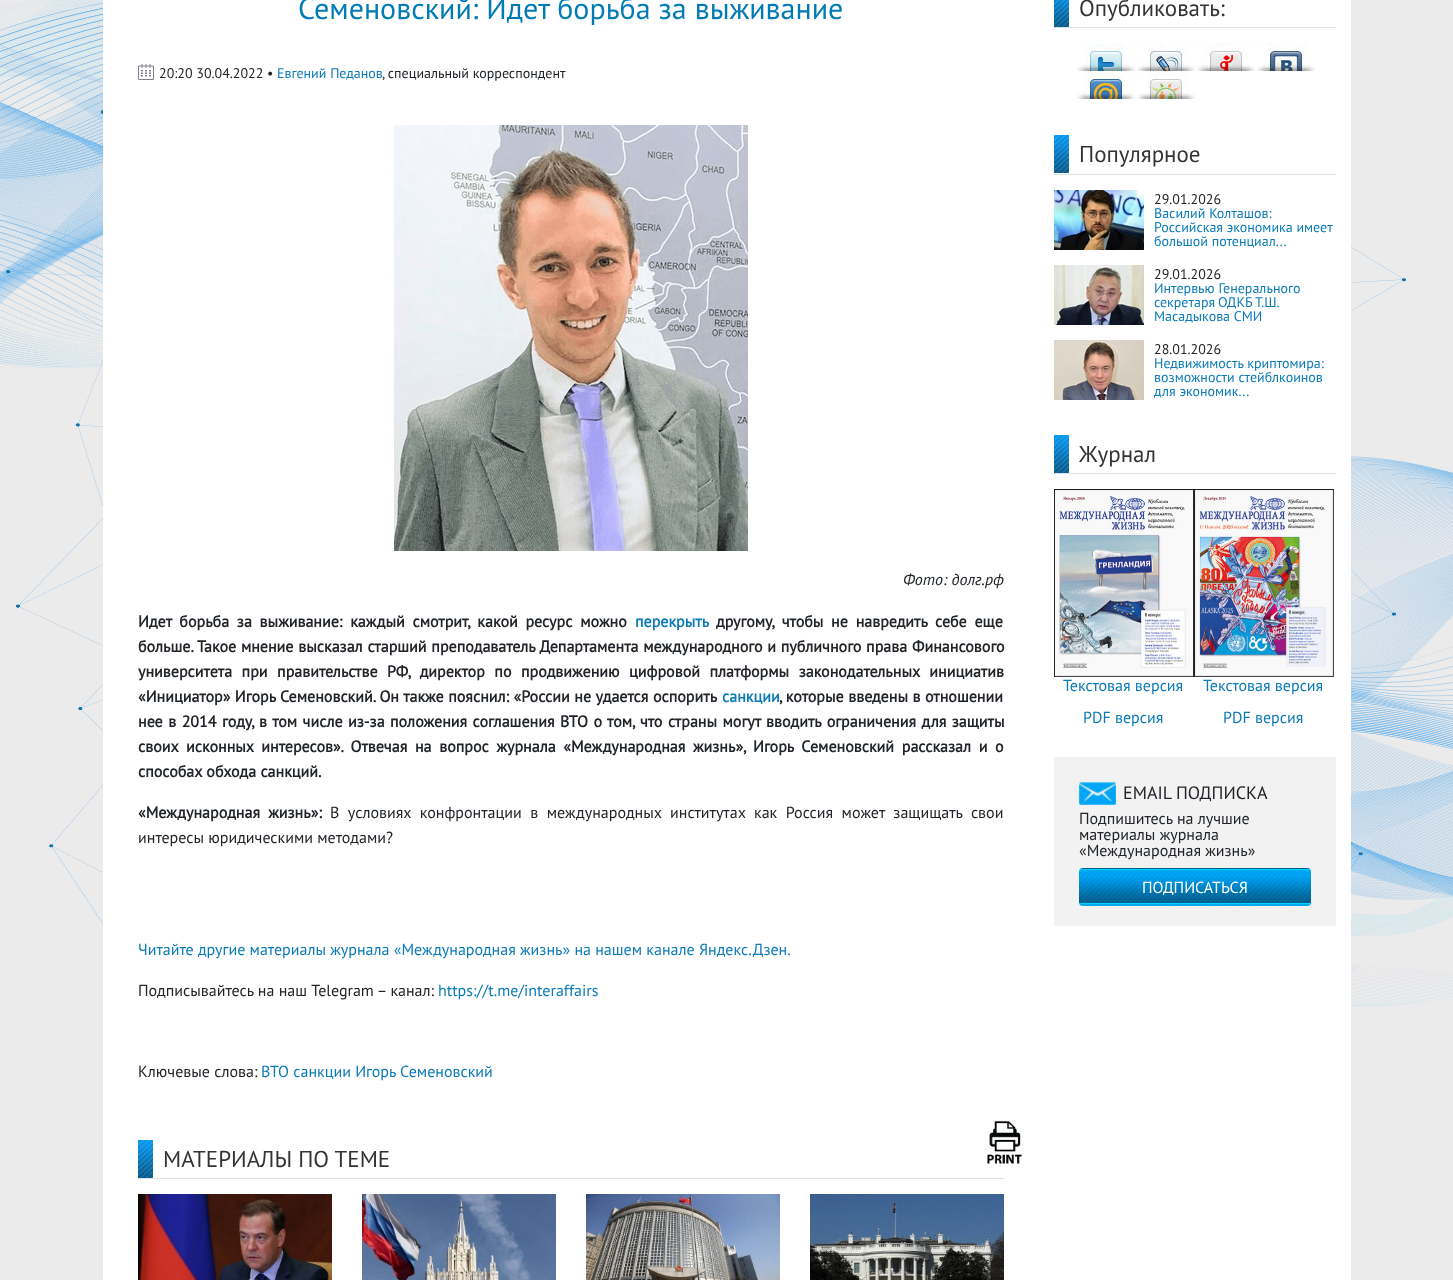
<!DOCTYPE html>
<meta charset="utf-8">
<style>body { margin: 0 } canvas { display: block }</style>
<canvas id="canvas" width="1453" height="1280"></canvas>
<script type="module">
  const canvas = document.getElementById("canvas");
  const ctx = canvas.getContext("2d");
  ctx.miterLimit = 4;
  ctx.fontKerning = "normal";
  async function loadImage(src) {
    const img = new Image();
    img.src = src;
    await img.decode();
    return img;
  }

  ctx.fillStyle = "#ffffff";
  ctx.fillRect(0, 0, 1453, 1280);
  ctx.drawImage(await loadImage("img1.png"), 0, 0, 1453, 1280);
  ctx.fillRect(103, 0, 1248, 1280);
  ctx.font = "30px PT Sans";
  ctx.fillStyle = "#007bb5";
  ctx.fillText("Семеновский: Идет борьба за выживание", 298, 19);
  ctx.drawImage(await loadImage("img2.png"), 138, 64, 16, 16);
  ctx.font = "14px PT Sans";
  ctx.fillStyle = "#212529";
  ctx.fillText("20:20 30.04.2022 •", 159, 78);
  ctx.fillStyle = "#0b7bb8";
  ctx.fillText("Евгений Педанов", 277, 78);
  ctx.fillStyle = "#212529";
  ctx.fillText(", специальный корреспондент", 382, 78);
  ctx.drawImage(await loadImage("img3.png"), 394, 125, 354, 426);
  ctx.font = "italic 16px PT Sans";
  ctx.fillText("Фото: долг.рф", 903, 585);
  ctx.wordSpacing = "3.5px";
  ctx.font = "bold 16px PT Sans";
  ctx.fillText("Идет борьба за выживание: каждый смотрит, какой ресурс можно", 138, 627);
  ctx.wordSpacing = "0px";
  ctx.fillStyle = "#0b7bb8";
  ctx.fillText("перекрыть", 635, 627);
  ctx.wordSpacing = "3.5px";
  ctx.fillStyle = "#212529";
  ctx.fillText("другому, чтобы не навредить себе еще", 716, 627);
  ctx.wordSpacing = "0.5px";
  ctx.fillText("больше. Такое мнение высказал старший преподаватель Департамента международного и публичного права Финансового", 138, 652);
  ctx.wordSpacing = "5.25px";
  ctx.fillText("университета при правительстве РФ, директор по продвижению цифровой платформы законодательных инициатив", 138, 677);
  ctx.wordSpacing = "0.25px";
  ctx.fillText("«Инициатор» Игорь Семеновский. Он также пояснил: «России не удается оспорить", 138, 702);
  ctx.wordSpacing = "0px";
  ctx.fillStyle = "#0b7bb8";
  ctx.fillText("санкции", 722, 702);
  ctx.wordSpacing = "0.25px";
  ctx.fillStyle = "#212529";
  ctx.fillText(", которые введены в отношении", 779, 702);
  ctx.wordSpacing = "1.2px";
  ctx.fillText("нее в 2014 году, в том числе из-за положения соглашения ВТО о том, что страны могут вводить ограничения для защиты", 138, 727);
  ctx.wordSpacing = "3.4px";
  ctx.fillText("своих исконных интересов». Отвечая на вопрос журнала «Международная жизнь», Игорь Семеновский рассказал и о", 138, 752);
  ctx.wordSpacing = "0px";
  ctx.fillText("способах обхода санкций.", 138, 777);
  ctx.wordSpacing = "4px";
  ctx.fillText("«Международная жизнь»:", 138, 818);
  ctx.wordSpacing = "4.25px";
  ctx.font = "16px PT Sans";
  ctx.fillText("В условиях конфронтации в международных институтах как Россия может защищать свои", 330, 818);
  ctx.wordSpacing = "0px";
  ctx.fillText("интересы юридическими методами?", 138, 843);
  ctx.fillStyle = "#0b7bb8";
  ctx.fillText("Читайте другие материалы журнала «Международная жизнь» на нашем канале Яндекс.Дзен.", 138, 955);
  ctx.fillStyle = "#212529";
  ctx.fillText("Подписывайтесь на наш Telegram – канал:", 138, 996);
  ctx.fillStyle = "#0b7bb8";
  ctx.fillText("https://t.me/interaffairs", 438, 996);
  ctx.fillStyle = "#212529";
  ctx.fillText("Ключевые слова:", 138, 1077);
  ctx.fillStyle = "#0b7bb8";
  ctx.fillText("ВТО санкции Игорь Семеновский", 261, 1077);
  ctx.fillStyle = "#dce1e5";
  ctx.fillRect(138, 1178, 866, 1);
  ctx.drawImage(await loadImage("img4.png"), 138, 1140, 15, 38);
  ctx.font = "23px PT Sans";
  ctx.fillStyle = "#333333";
  ctx.fillText("МАТЕРИАЛЫ ПО ТЕМЕ", 163, 1167);
  ctx.drawImage(await loadImage("img5.png"), 138, 1194, 194, 86);
  ctx.drawImage(await loadImage("img6.png"), 362, 1194, 194, 86);
  ctx.drawImage(await loadImage("img7.png"), 586, 1194, 194, 86);
  ctx.drawImage(await loadImage("img8.png"), 810, 1194, 194, 86);
  ctx.drawImage(await loadImage("img9.png"), 987, 1120, 35, 44);
  ctx.fillStyle = "#dce1e5";
  ctx.fillRect(1054, 27, 282, 1);
  ctx.drawImage(await loadImage("img10.png"), 1054, 0, 15, 27);
  ctx.fillStyle = "#333333";
  ctx.fillText("Опубликовать:", 1079, 16);
  ctx.drawImage(await loadImage("img11.png"), 1077, 43, 58, 28);
  ctx.drawImage(await loadImage("img12.png"), 1137, 43, 58, 28);
  ctx.drawImage(await loadImage("img13.png"), 1197, 43, 58, 28);
  ctx.drawImage(await loadImage("img14.png"), 1257, 43, 58, 28);
  ctx.drawImage(await loadImage("img15.png"), 1077, 71, 58, 28);
  ctx.drawImage(await loadImage("img16.png"), 1137, 71, 58, 28);
  ctx.fillStyle = "#dce1e5";
  ctx.fillRect(1054, 174, 282, 1);
  ctx.drawImage(await loadImage("img4.png"), 1054, 135, 15, 38);
  ctx.fillStyle = "#333333";
  ctx.fillText("Популярное", 1079, 162);
  ctx.drawImage(await loadImage("img17.png"), 1054, 190, 90, 60);
  ctx.font = "14px PT Sans";
  ctx.fillStyle = "#212529";
  ctx.fillText("29.01.2026", 1154, 204);
  ctx.fillStyle = "#0b7bb8";
  ctx.fillText("Василий Колташов:", 1154, 218);
  ctx.fillText("Российская экономика имеет", 1154, 232);
  ctx.fillText("большой потенциал...", 1154, 246);
  ctx.drawImage(await loadImage("img18.png"), 1054, 265, 90, 60);
  ctx.fillStyle = "#212529";
  ctx.fillText("29.01.2026", 1154, 279);
  ctx.fillStyle = "#0b7bb8";
  ctx.fillText("Интервью Генерального", 1154, 293);
  ctx.wordSpacing = "-1px";
  ctx.fillText("секретаря ОДКБ Т.Ш.", 1154, 307);
  ctx.wordSpacing = "0px";
  ctx.fillText("Масадыкова СМИ", 1154, 321);
  ctx.drawImage(await loadImage("img19.png"), 1054, 340, 90, 60);
  ctx.fillStyle = "#212529";
  ctx.fillText("28.01.2026", 1154, 354);
  ctx.fillStyle = "#0b7bb8";
  ctx.fillText("Недвижимость криптомира:", 1154, 368);
  ctx.fillText("возможности стейблкоинов", 1154, 382);
  ctx.fillText("для экономик...", 1154, 396);
  ctx.fillStyle = "#dce1e5";
  ctx.fillRect(1054, 473, 282, 1);
  ctx.drawImage(await loadImage("img4.png"), 1054, 435, 15, 38);
  ctx.font = "23px PT Sans";
  ctx.fillStyle = "#333333";
  ctx.fillText("Журнал", 1079, 462);
  ctx.drawImage(await loadImage("img20.png"), 1054, 489, 140, 188);
  ctx.font = "16px PT Sans";
  ctx.fillStyle = "#0b7bb8";
  ctx.fillText("Текстовая версия", 1063, 691);
  ctx.fillText("PDF версия", 1083, 723);
  ctx.drawImage(await loadImage("img21.png"), 1194, 489, 140, 188);
  ctx.fillText("Текстовая версия", 1203, 691);
  ctx.fillText("PDF версия", 1223, 723);
  ctx.fillStyle = "#f2f2f2";
  ctx.fillRect(1054, 757, 282, 169);
  ctx.drawImage(await loadImage("img22.png"), 1078, 781, 38, 24);
  ctx.font = "18px PT Sans";
  ctx.fillStyle = "#212529";
  ctx.fillText("EMAIL ПОДПИСКА", 1123, 799);
  ctx.font = "16px PT Sans";
  ctx.fillText("Подпишитесь на лучшие", 1079, 824);
  ctx.fillText("материалы журнала", 1079, 840);
  ctx.fillText("«Международная жизнь»", 1079, 856);
  ctx.drawImage(await loadImage("img23.png"), 1079, 868, 232, 38);
  ctx.fillStyle = "#ffffff";
  ctx.fillText("ПОДПИСАТЬСЯ", 1142, 893);
</script>
